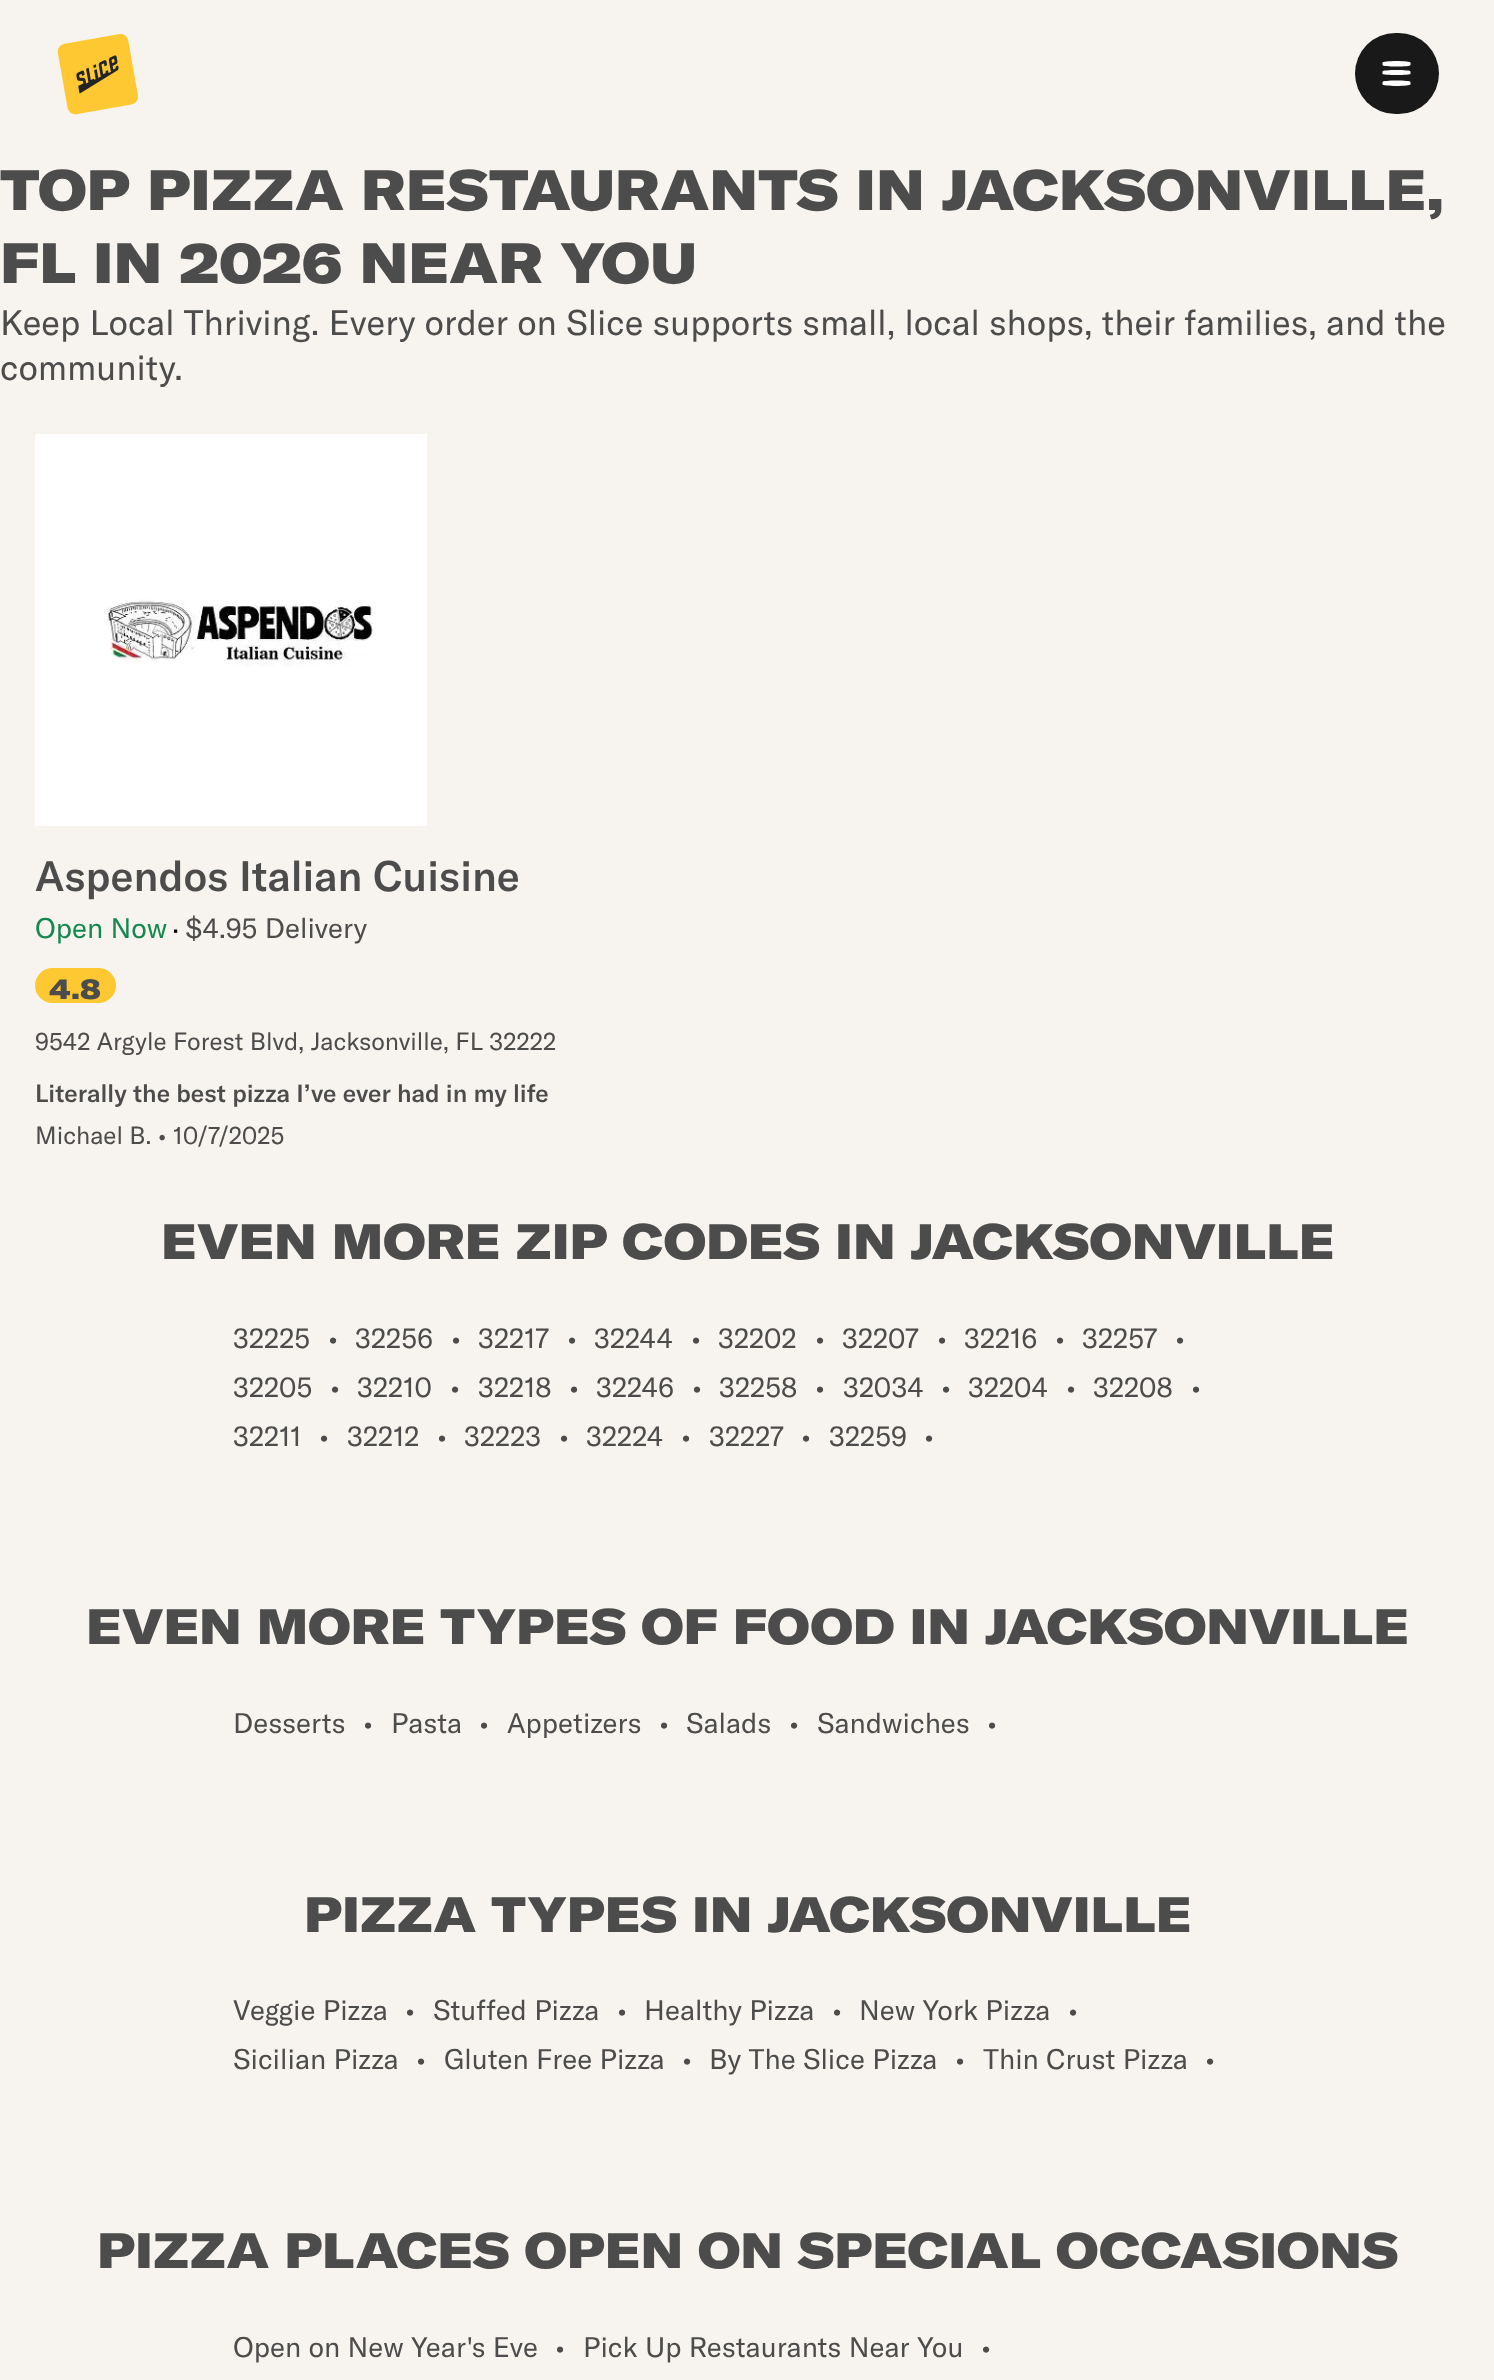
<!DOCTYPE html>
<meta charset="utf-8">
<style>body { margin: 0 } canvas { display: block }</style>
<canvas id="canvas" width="1494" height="2380"></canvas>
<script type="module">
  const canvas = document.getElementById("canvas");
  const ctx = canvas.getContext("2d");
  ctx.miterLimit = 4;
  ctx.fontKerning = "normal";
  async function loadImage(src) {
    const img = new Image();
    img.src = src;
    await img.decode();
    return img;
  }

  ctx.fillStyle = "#f7f4ef";
  ctx.fillRect(0, 0, 1494, 2380);
  ctx.drawImage(await loadImage("img1.png"), 57, 34, 81, 81);
  ctx.fillStyle = "#191919";
  ctx.beginPath();
  ctx.roundRect(1355, 33, 84, 81, 40.5);
  ctx.fill();
  ctx.fillStyle = "#fcfcfc";
  ctx.beginPath();
  ctx.moveTo(1396.5, 70);
  ctx.bezierCurveTo(1404, 70, 1410.5, 70.5, 1410.5, 71.5);
  ctx.lineTo(1410.5, 74);
  ctx.bezierCurveTo(1410.5, 74.5, 1404, 75, 1396.5, 75);
  ctx.bezierCurveTo(1389, 75, 1382.5, 74.5, 1382.5, 74);
  ctx.lineTo(1382.5, 71.5);
  ctx.bezierCurveTo(1382.5, 70.5, 1389, 70, 1396.5, 70);
  ctx.closePath();
  ctx.fill();
  ctx.beginPath();
  ctx.moveTo(1396.5, 61);
  ctx.bezierCurveTo(1404, 61, 1410.5, 62, 1410.5, 62.5);
  ctx.lineTo(1410.5, 65);
  ctx.bezierCurveTo(1410.5, 66, 1404, 66.5, 1396.5, 66.5);
  ctx.bezierCurveTo(1389, 66.5, 1382.5, 66, 1382.5, 65);
  ctx.lineTo(1382.5, 62.5);
  ctx.bezierCurveTo(1382.5, 62, 1389, 61, 1396.5, 61);
  ctx.closePath();
  ctx.moveTo(1396.5, 80.5);
  ctx.bezierCurveTo(1404, 80.5, 1410.5, 81, 1410.5, 82);
  ctx.lineTo(1410.5, 84.5);
  ctx.bezierCurveTo(1410.5, 85, 1404, 86, 1396.5, 86);
  ctx.bezierCurveTo(1389, 86, 1382.5, 85, 1382.5, 84.5);
  ctx.lineTo(1382.5, 82);
  ctx.bezierCurveTo(1382.5, 81, 1389, 80.5, 1396.5, 80.5);
  ctx.closePath();
  ctx.fill();
  ctx.font = "900 56px GT America";
  ctx.fillStyle = "#4c4c4c";
  ctx.fillText("TOP PIZZA RESTAURANTS IN JACKSONVILLE,", 0, 210);
  ctx.fillText("FL IN 2026 NEAR YOU", 0, 283);
  ctx.font = "35px GT America";
  ctx.fillText("Keep Local Thriving. Every order on Slice supports small, local shops, their families, and the", 0, 335);
  ctx.fillText("community.", 0, 380);
  ctx.fillStyle = "#ffffff";
  ctx.fillRect(35, 434, 392, 392);
  ctx.drawImage(await loadImage("img2.png"), 106, 599, 267, 68);
  ctx.font = "500 42px GT America";
  ctx.fillStyle = "#4c4c4c";
  ctx.fillText("Aspendos Italian Cuisine", 35, 891);
  ctx.font = "28px GT America";
  ctx.fillStyle = "#15884f";
  ctx.fillText("Open Now", 35, 938);
  ctx.fillStyle = "#000000";
  ctx.fillText("·", 172, 939);
  ctx.fillStyle = "#4c4c4c";
  ctx.fillText("$4.95 Delivery", 185, 938);
  ctx.fillStyle = "#fdc831";
  ctx.beginPath();
  ctx.roundRect(35, 968, 81, 35, 17.5);
  ctx.fill();
  ctx.font = "900 28px GT America";
  ctx.fillStyle = "#4c4c4c";
  ctx.fillText("4.8", 49, 999);
  ctx.font = "24.5px GT America";
  ctx.fillText("9542 Argyle Forest Blvd, Jacksonville, FL 32222", 35, 1050);
  ctx.font = "500 24.5px GT America";
  ctx.fillText("Literally the best pizza I’ve ever had in my life", 35, 1102);
  ctx.font = "24.5px GT America";
  ctx.fillText("Michael B. • 10/7/2025", 35, 1144);
  ctx.font = "900 49px GT America";
  ctx.fillText("EVEN MORE ZIP CODES IN JACKSONVILLE", 161, 1259);
  ctx.font = "28px GT America";
  ctx.fillText("32225", 233, 1348);
  ctx.fillText("•", 328, 1348);
  ctx.fillText("32256", 355, 1348);
  ctx.fillText("•", 451, 1348);
  ctx.fillText("32217", 478, 1348);
  ctx.fillText("•", 567, 1348);
  ctx.fillText("32244", 594, 1348);
  ctx.fillText("•", 691, 1348);
  ctx.fillText("32202", 718, 1348);
  ctx.fillText("•", 815, 1348);
  ctx.fillText("32207", 842, 1348);
  ctx.fillText("•", 937, 1348);
  ctx.fillText("32216", 964, 1348);
  ctx.fillText("•", 1055, 1348);
  ctx.fillText("32257", 1082, 1348);
  ctx.fillText("•", 1175, 1348);
  ctx.fillText("32205", 233, 1397);
  ctx.fillText("•", 330, 1397);
  ctx.fillText("32210", 357, 1397);
  ctx.fillText("•", 450, 1397);
  ctx.fillText("32218", 478, 1397);
  ctx.fillText("•", 569, 1397);
  ctx.fillText("32246", 596, 1397);
  ctx.fillText("•", 692, 1397);
  ctx.fillText("32258", 719, 1397);
  ctx.fillText("•", 815, 1397);
  ctx.fillText("32034", 843, 1397);
  ctx.fillText("•", 941, 1397);
  ctx.fillText("32204", 968, 1397);
  ctx.fillText("•", 1066, 1397);
  ctx.fillText("32208", 1093, 1397);
  ctx.fillText("•", 1191, 1397);
  ctx.fillText("32211", 233, 1446);
  ctx.fillText("•", 319, 1446);
  ctx.fillText("32212", 347, 1446);
  ctx.fillText("•", 437, 1446);
  ctx.fillText("32223", 464, 1446);
  ctx.fillText("•", 559, 1446);
  ctx.fillText("32224", 586, 1446);
  ctx.fillText("•", 681, 1446);
  ctx.fillText("32227", 709, 1446);
  ctx.fillText("•", 801, 1446);
  ctx.fillText("32259", 829, 1446);
  ctx.fillText("•", 924, 1446);
  ctx.font = "900 49px GT America";
  ctx.fillText("EVEN MORE TYPES OF FOOD IN JACKSONVILLE", 86, 1644);
  ctx.font = "28px GT America";
  ctx.fillText("Desserts", 233, 1733);
  ctx.fillText("•", 363, 1733);
  ctx.fillText("Pasta", 391, 1733);
  ctx.fillText("•", 479, 1733);
  ctx.save();
  ctx.beginPath();
  ctx.rect(499, 1706, 150, 32);
  ctx.clip();
  ctx.fillText("Appetizers", 507, 1733);
  ctx.restore();
  ctx.fillText("•", 659, 1733);
  ctx.fillText("Salads", 686, 1733);
  ctx.fillText("•", 789, 1733);
  ctx.fillText("Sandwiches", 817, 1733);
  ctx.fillText("•", 987, 1733);
  ctx.font = "900 49px GT America";
  ctx.fillText("PIZZA TYPES IN JACKSONVILLE", 304, 1932);
  ctx.font = "28px GT America";
  ctx.fillText("Veggie Pizza", 233, 2020);
  ctx.fillText("•", 405, 2020);
  ctx.fillText("Stuffed Pizza", 433, 2020);
  ctx.fillText("•", 617, 2020);
  ctx.fillText("Healthy Pizza", 644, 2020);
  ctx.fillText("•", 832, 2020);
  ctx.fillText("New York Pizza", 859, 2020);
  ctx.fillText("•", 1068, 2020);
  ctx.fillText("Sicilian Pizza", 233, 2069);
  ctx.fillText("•", 416, 2069);
  ctx.fillText("Gluten Free Pizza", 444, 2069);
  ctx.fillText("•", 682, 2069);
  ctx.fillText("By The Slice Pizza", 709, 2069);
  ctx.fillText("•", 955, 2069);
  ctx.fillText("Thin Crust Pizza", 983, 2069);
  ctx.fillText("•", 1205, 2069);
  ctx.font = "900 49px GT America";
  ctx.fillText("PIZZA PLACES OPEN ON SPECIAL OCCASIONS", 97, 2268);
  ctx.font = "28px GT America";
  ctx.fillText("Open on New Year's Eve", 233, 2357);
  ctx.fillText("•", 555, 2357);
  ctx.fillText("Pick Up Restaurants Near You", 583, 2357);
  ctx.fillText("•", 981, 2357);
</script>
